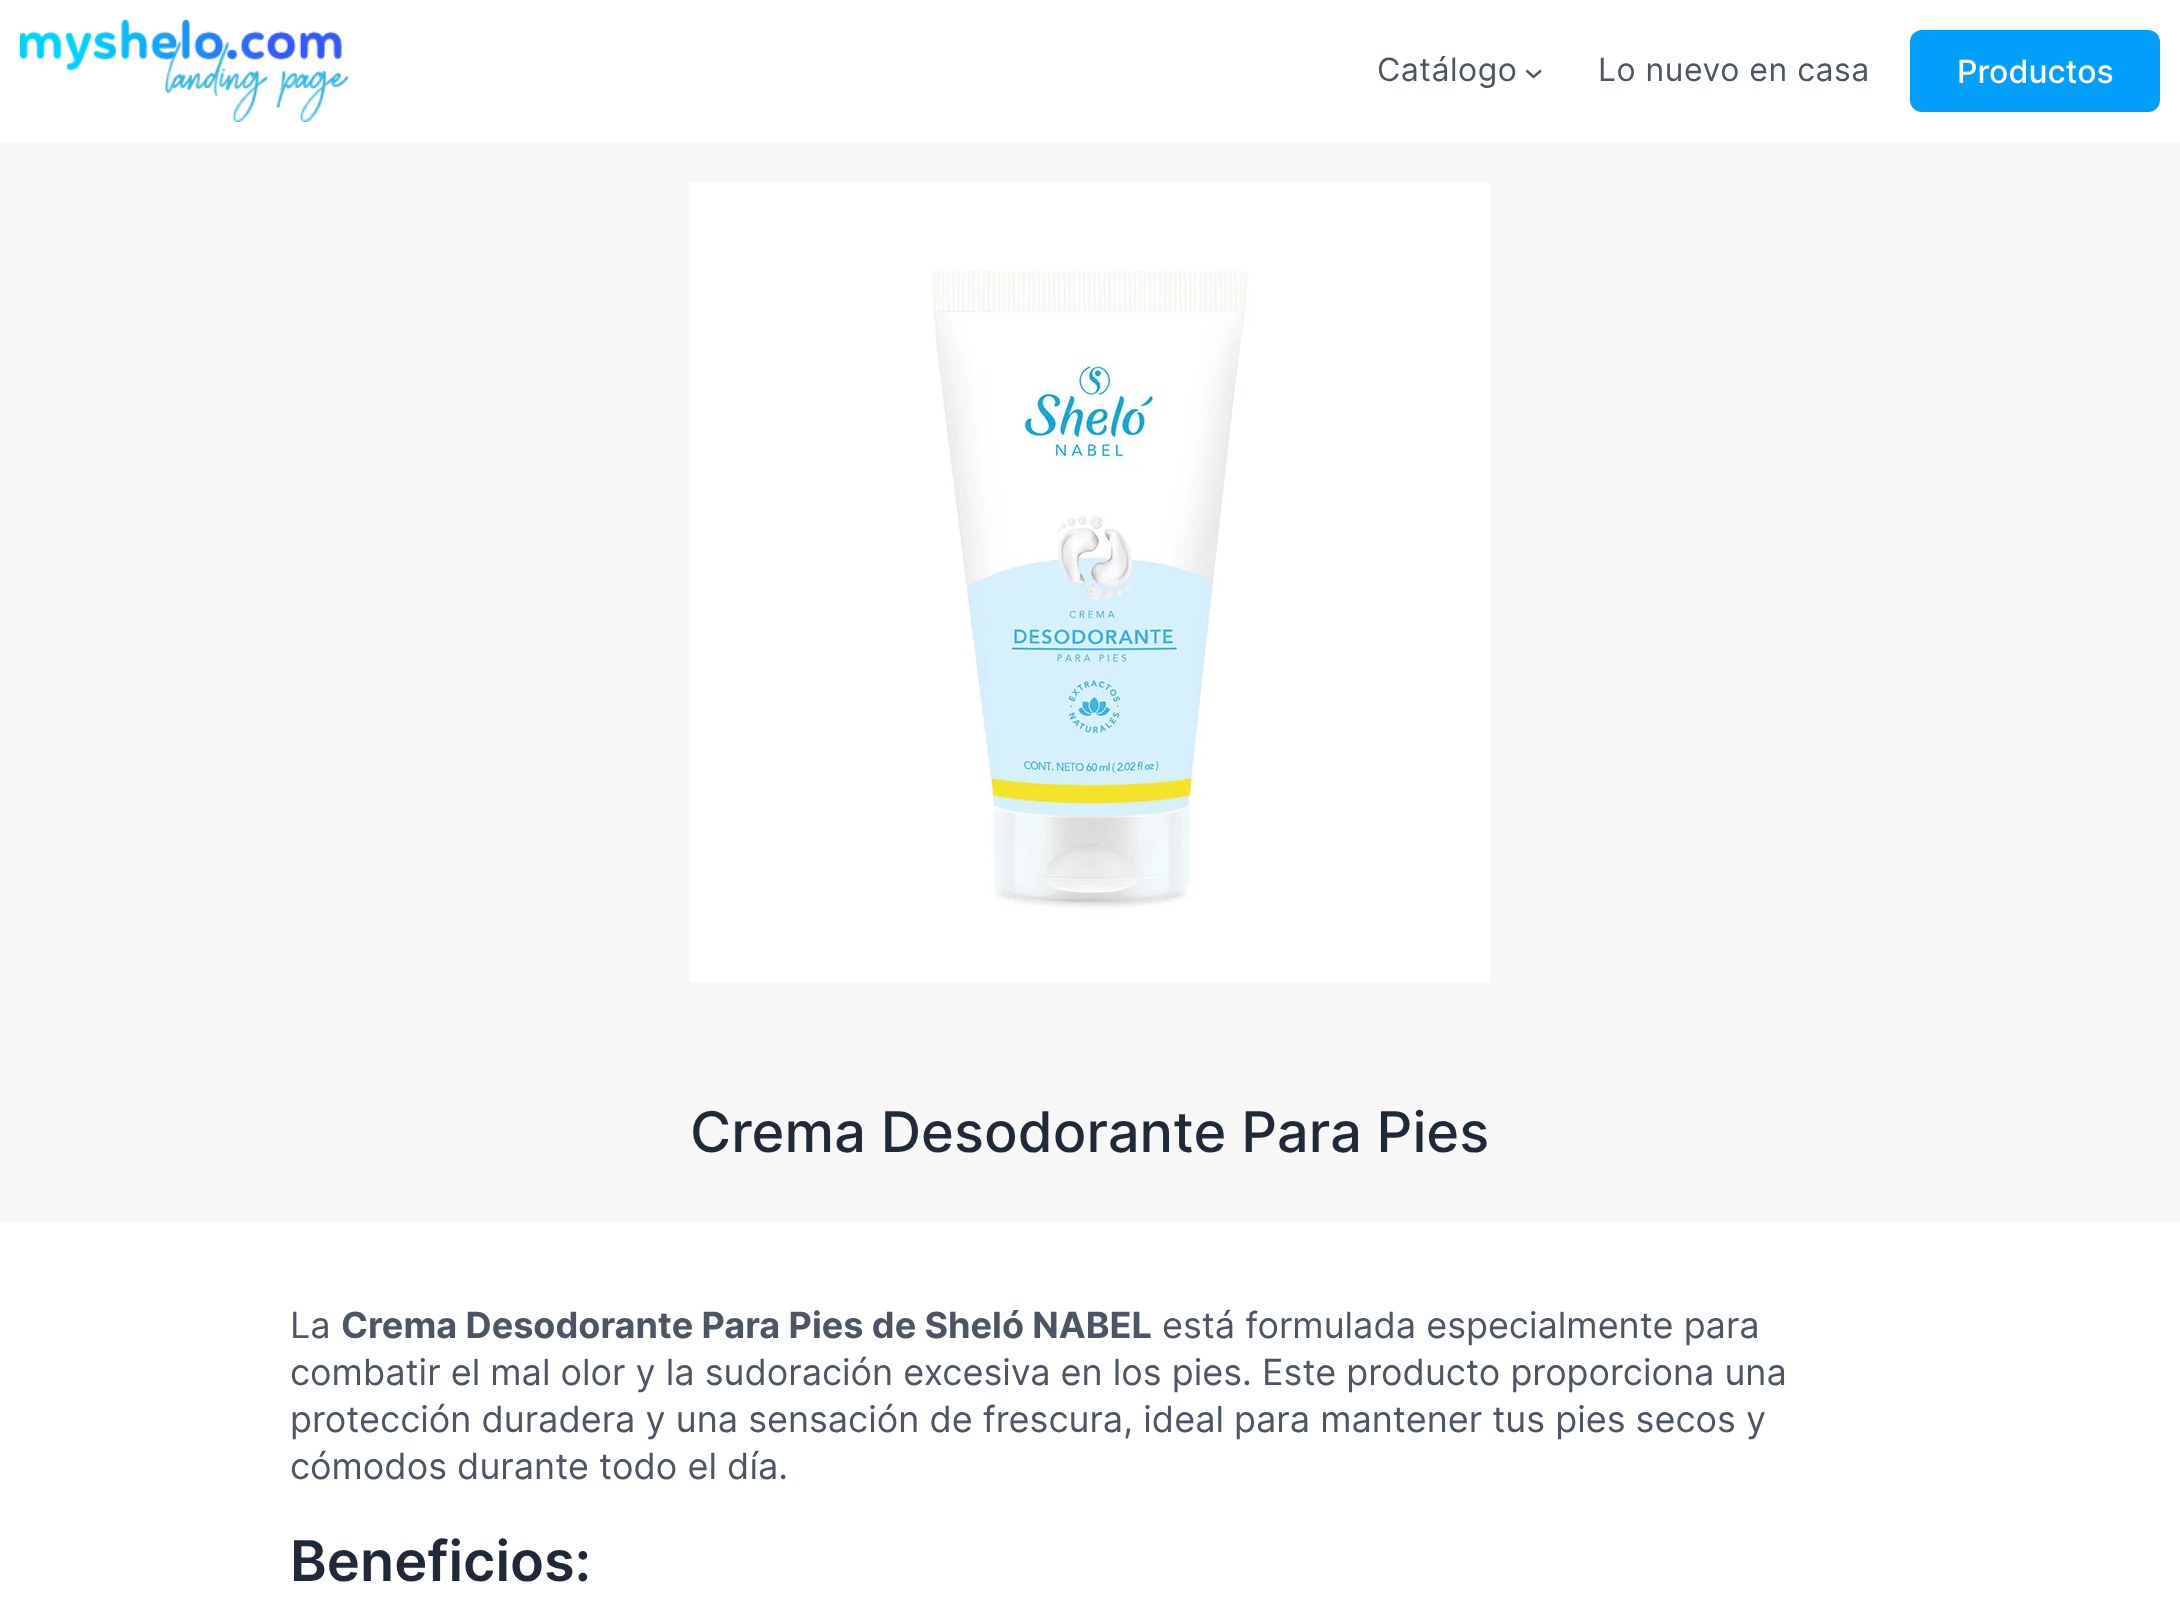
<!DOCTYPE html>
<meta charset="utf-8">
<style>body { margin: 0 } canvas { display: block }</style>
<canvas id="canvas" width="2180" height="1613"></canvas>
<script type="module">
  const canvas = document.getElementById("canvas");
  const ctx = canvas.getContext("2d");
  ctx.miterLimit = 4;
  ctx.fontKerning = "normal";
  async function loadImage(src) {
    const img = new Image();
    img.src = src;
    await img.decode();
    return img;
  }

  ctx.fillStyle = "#ffffff";
  ctx.fillRect(0, 0, 2180, 1613);
  ctx.drawImage(await loadImage("img1.png"), 20, 20, 328, 102);
  ctx.letterSpacing = "0.5px";
  ctx.font = "32px Inter";
  ctx.fillStyle = "#4b5563";
  ctx.fillText("Catálogo", 1377, 81);
  ctx.beginPath();
  ctx.moveTo(1526.5, 70.5);
  ctx.lineTo(1533.5, 77);
  ctx.lineTo(1541, 70.5);
  ctx.strokeStyle = "#4b5563";
  ctx.lineWidth = 2.4;
  ctx.stroke();
  ctx.fillText("Lo nuevo en casa", 1598, 81);
  ctx.fillStyle = "#009ffb";
  ctx.beginPath();
  ctx.roundRect(1910, 30, 250, 82, 12);
  ctx.fill();
  ctx.letterSpacing = "0px";
  ctx.font = "500 32px Inter";
  ctx.fillStyle = "#ffffff";
  ctx.fillText("Productos", 1957, 83);
  ctx.fillStyle = "#f7f7f7";
  ctx.fillRect(0, 142, 2180, 1080);
  ctx.drawImage(await loadImage("img2.png"), 690, 182, 800, 800);
  ctx.font = "500 56px Inter";
  ctx.fillStyle = "#1f2937";
  ctx.fillText("Crema Desodorante Para Pies", 690, 1152);
  ctx.font = "36px Inter";
  ctx.fillStyle = "#4b5563";
  ctx.fillText("La", 290, 1338);
  ctx.font = "bold 36px Inter";
  ctx.fillText("Crema Desodorante Para Pies de Sheló NABEL", 341, 1338);
  ctx.font = "36px Inter";
  ctx.fillText("está formulada especialmente para", 1162, 1338);
  ctx.fillText("combatir el mal olor y la sudoración excesiva en los pies. Este producto proporciona una", 290, 1385);
  ctx.fillText("protección duradera y una sensación de frescura, ideal para mantener tus pies secos y", 290, 1432);
  ctx.fillText("cómodos durante todo el día.", 290, 1479);
  ctx.font = "600 56px Inter";
  ctx.fillStyle = "#1f2937";
  ctx.fillText("Beneficios:", 290, 1581);
</script>
